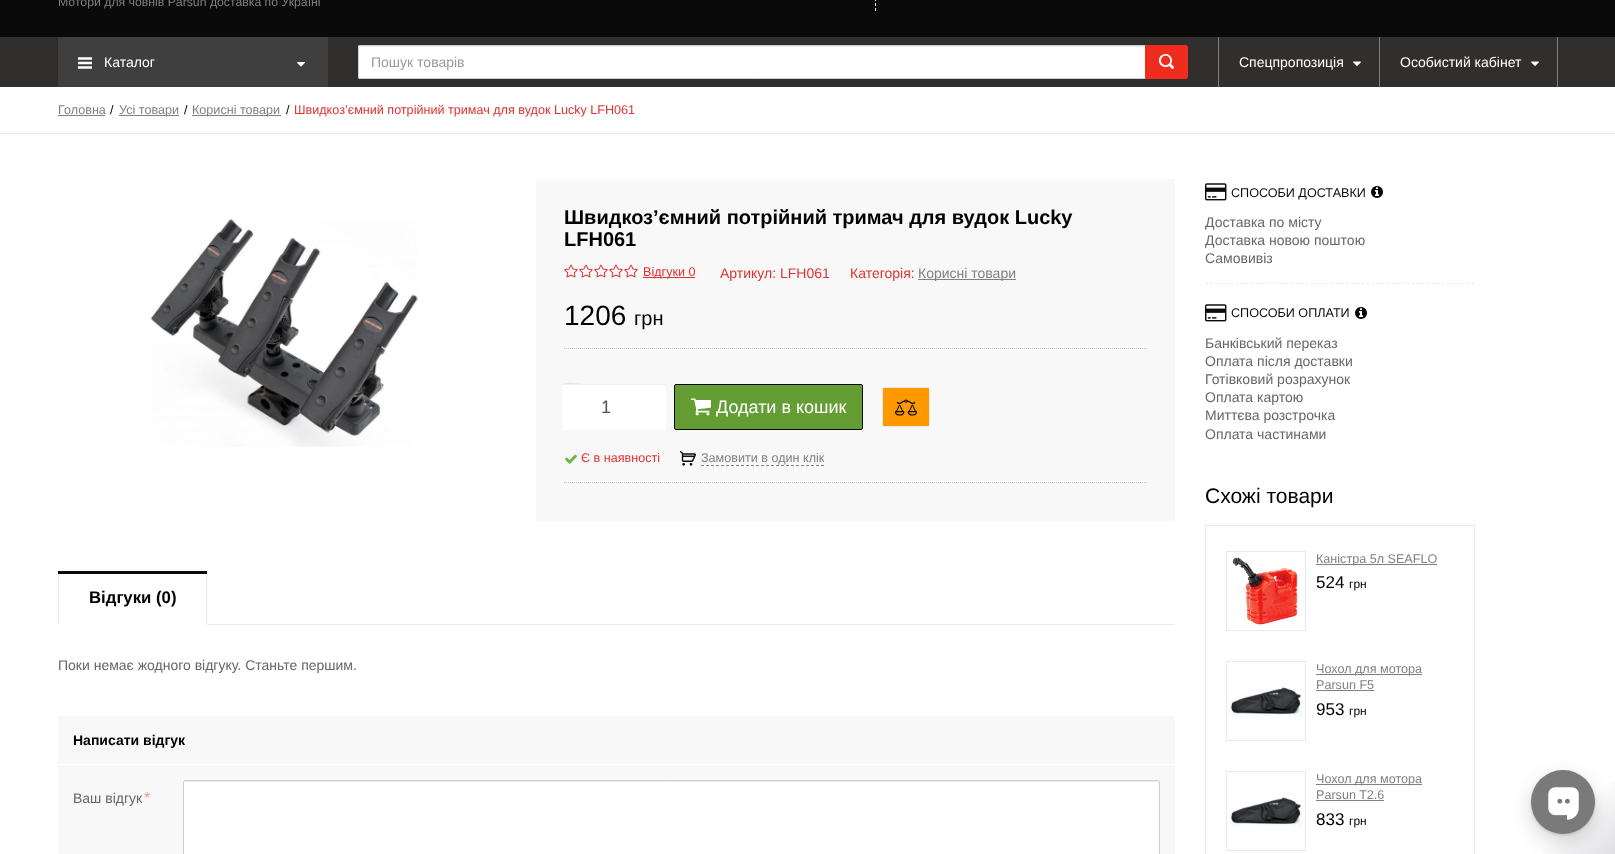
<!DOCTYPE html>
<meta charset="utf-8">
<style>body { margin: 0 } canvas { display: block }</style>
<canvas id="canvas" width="1615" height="854"></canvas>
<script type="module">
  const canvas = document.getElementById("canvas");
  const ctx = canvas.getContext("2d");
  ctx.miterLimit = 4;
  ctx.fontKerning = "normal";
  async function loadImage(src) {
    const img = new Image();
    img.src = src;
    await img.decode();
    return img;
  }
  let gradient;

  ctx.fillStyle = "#ffffff";
  ctx.fillRect(0, 0, 1615, 854);
  ctx.fillStyle = "#0a0a0a";
  ctx.fillRect(0, 0, 1615, 37);
  ctx.font = "12.25px Liberation Sans";
  ctx.fillStyle = "#847f7f";
  ctx.fillText("Мотори для човнів Parsun доставка по Україні", 58, 6);
  ctx.beginPath();
  ctx.moveTo(875.5, -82);
  ctx.lineTo(875.5, 11);
  ctx.strokeStyle = "#eaeaea";
  ctx.setLineDash([3, 2]);
  ctx.stroke();
  ctx.fillStyle = "#312e2e";
  ctx.fillRect(0, 37, 1615, 50);
  ctx.fillStyle = "#3f3f3f";
  ctx.fillRect(58, 37, 270, 50);
  ctx.drawImage(await loadImage("img1.png"), 78, 57, 14, 12);
  ctx.font = "14px Liberation Sans";
  ctx.fillStyle = "#ffffff";
  ctx.fillText("Каталог", 104, 67);
  ctx.drawImage(await loadImage("img2.png"), 297, 62, 8, 5);
  ctx.beginPath();
  ctx.roundRect(358, 45, 788, 34, [2, 0, 0, 2]);
  ctx.fill();
  ctx.fillStyle = "#ececec";
  ctx.beginPath();
  ctx.moveTo(360, 47);
  ctx.lineTo(1145, 47);
  ctx.lineTo(1145, 46);
  ctx.lineTo(360, 46);
  ctx.bezierCurveTo(359, 46, 359, 47, 359, 48);
  ctx.bezierCurveTo(359, 47, 359, 47, 360, 47);
  ctx.closePath();
  ctx.fill();
  ctx.beginPath();
  ctx.roundRect(358.5, 45.5, 787, 33, [1.5, 0, 0, 1.5]);
  ctx.strokeStyle = "#c8cfd9";
  ctx.setLineDash([]);
  ctx.stroke();
  ctx.fillStyle = "#999999";
  ctx.fillText("Пошук товарів", 371, 67);
  ctx.fillStyle = "#ef2c1e";
  ctx.beginPath();
  ctx.roundRect(1145.5, 45.5, 42, 33, [0, 1.5, 1.5, 0]);
  ctx.fill();
  ctx.strokeStyle = "#ef2c1e";
  ctx.stroke();
  ctx.drawImage(await loadImage("img3.png"), 1158, 54, 16, 15);
  ctx.fillStyle = "#827c7c";
  ctx.fillRect(1218, 37, 1, 50);
  ctx.fillStyle = "#ffffff";
  ctx.fillText("Спецпропозиція", 1239, 67);
  ctx.drawImage(await loadImage("img4.png"), 1353, 61, 8, 5);
  ctx.fillStyle = "#827c7c";
  ctx.fillRect(1557, 37, 1, 50);
  ctx.fillRect(1379, 37, 1, 50);
  ctx.fillStyle = "#ffffff";
  ctx.fillText("Особистий кабінет", 1400, 67);
  ctx.drawImage(await loadImage("img4.png"), 1531, 61, 8, 5);
  ctx.fillStyle = "#eaeaea";
  ctx.fillRect(0, 133, 1615, 1);
  ctx.font = "12.6px Liberation Sans";
  ctx.fillStyle = "#847f7f";
  ctx.fillText("Головна", 58, 114);
  ctx.fillRect(58, 115, 47, 1);
  ctx.fillStyle = "#000000";
  ctx.fillText("/", 110, 114);
  ctx.fillStyle = "#847f7f";
  ctx.fillRect(119, 115, 60, 1);
  ctx.fillText("Усі товари", 119, 114);
  ctx.fillStyle = "#000000";
  ctx.fillText("/", 184, 114);
  ctx.fillStyle = "#847f7f";
  ctx.fillRect(192, 115, 89, 1);
  ctx.fillText("Корисні товари", 192, 114);
  ctx.fillStyle = "#000000";
  ctx.fillText("/", 286, 114);
  ctx.fillStyle = "#dd3333";
  ctx.fillText("Швидкоз’ємний потрійний тримач для вудок Lucky LFH061", 294, 114);
  ctx.drawImage(await loadImage("img5.png"), 150, 219, 268, 228);
  ctx.fillStyle = "#f8f8f8";
  ctx.fillRect(536, 179, 639, 342);
  ctx.font = "bold 20px Liberation Sans";
  ctx.fillStyle = "#000000";
  ctx.fillText("Швидкоз’ємний потрійний тримач для вудок Lucky", 564, 224);
  ctx.fillText("LFH061", 564, 246);
  ctx.drawImage(await loadImage("img6.png"), 564, 264, 14, 14);
  ctx.drawImage(await loadImage("img7.png"), 579, 264, 14, 14);
  ctx.drawImage(await loadImage("img7.png"), 594, 264, 14, 14);
  ctx.drawImage(await loadImage("img7.png"), 609, 264, 14, 14);
  ctx.drawImage(await loadImage("img7.png"), 624, 264, 14, 14);
  ctx.fillStyle = "#dd3333";
  ctx.fillRect(643, 277, 52, 1);
  ctx.font = "12.6px Liberation Sans";
  ctx.fillText("Відгуки 0", 643, 276);
  ctx.font = "14px Liberation Sans";
  ctx.fillText("Артикул: LFH061", 720, 278);
  ctx.fillText("Категорія:", 850, 278);
  ctx.fillStyle = "#847f7f";
  ctx.fillRect(918, 279, 98, 1);
  ctx.fillText("Корисні товари", 918, 278);
  ctx.font = "28px Liberation Sans";
  ctx.fillStyle = "#000000";
  ctx.fillText("1206", 564, 325);
  ctx.font = "20px Liberation Sans";
  ctx.fillText("грн", 634, 325);
  ctx.beginPath();
  ctx.moveTo(564, 348.5);
  ctx.lineTo(1147, 348.5);
  ctx.strokeStyle = "#c5c5c5";
  ctx.setLineDash([1, 1]);
  ctx.stroke();
  ctx.fillStyle = "#ffffff";
  ctx.beginPath();
  ctx.roundRect(562, 384, 104, 46, 2);
  ctx.fill();
  ctx.fillStyle = "rgba(0, 0, 0, 0.07)";
  ctx.beginPath();
  ctx.moveTo(564, 385);
  ctx.lineTo(664, 385);
  ctx.bezierCurveTo(665, 385, 666, 386, 666, 387);
  ctx.bezierCurveTo(666, 386, 666, 384, 664, 384);
  ctx.lineTo(581, 384);
  ctx.bezierCurveTo(580, 384, 562, 379, 562, 387);
  ctx.bezierCurveTo(562, 386, 563, 385, 564, 385);
  ctx.closePath();
  ctx.fill();
  ctx.font = "18px Liberation Sans";
  ctx.fillStyle = "#555555";
  ctx.fillText("1", 601, 413);
  ctx.fillStyle = "#649d34";
  ctx.beginPath();
  ctx.roundRect(674.5, 384.5, 188, 45, 1.5);
  ctx.fill();
  ctx.strokeStyle = "#0a0a0a";
  ctx.setLineDash([]);
  ctx.stroke();
  ctx.drawImage(await loadImage("img8.png"), 691, 398, 20, 18);
  ctx.fillStyle = "#ffffff";
  ctx.fillText("Додати в кошик", 716, 413);
  ctx.fillStyle = "#fe9900";
  ctx.beginPath();
  ctx.roundRect(882.5, 387.5, 47, 39, 1.5);
  ctx.fill();
  ctx.strokeStyle = "#eaeaea";
  ctx.stroke();
  ctx.drawImage(await loadImage("img9.png"), 895, 399, 22, 17);
  ctx.drawImage(await loadImage("img10.png"), 565, 454, 12, 10);
  ctx.font = "12.6px Liberation Sans";
  ctx.fillStyle = "#dd3333";
  ctx.fillText("Є в наявності", 581, 462);
  ctx.drawImage(await loadImage("img11.png"), 680, 451, 16, 15);
  ctx.beginPath();
  ctx.moveTo(701, 465.5);
  ctx.lineTo(824, 465.5);
  ctx.strokeStyle = "#847f7f";
  ctx.setLineDash([3, 2]);
  ctx.stroke();
  ctx.fillStyle = "#847f7f";
  ctx.fillText("Замовити в один клік", 701, 462);
  ctx.beginPath();
  ctx.moveTo(564, 482.5);
  ctx.lineTo(1147, 482.5);
  ctx.strokeStyle = "#c5c5c5";
  ctx.setLineDash([1, 1]);
  ctx.stroke();
  ctx.fillStyle = "#eaeaea";
  ctx.fillRect(206, 571, 1, 54);
  ctx.fillStyle = "#ffffff";
  ctx.fillRect(206, 624, 1, 1);
  ctx.fillStyle = "#eaeaea";
  ctx.fillRect(58, 571, 1, 54);
  ctx.fillStyle = "#0a0a0a";
  ctx.fillRect(58, 571, 149, 3);
  ctx.font = "bold 16.75px Liberation Sans";
  ctx.fillStyle = "#000000";
  ctx.fillText("Відгуки (0)", 89, 603);
  ctx.fillStyle = "#eaeaea";
  ctx.fillRect(207, 624, 968, 1);
  ctx.font = "14px Liberation Sans";
  ctx.fillStyle = "#666666";
  ctx.fillText("Поки немає жодного відгуку. Станьте першим.", 58, 670);
  ctx.fillStyle = "#f8f8f8";
  ctx.fillRect(58, 716, 1117, 48);
  ctx.font = "bold 14px Liberation Sans";
  ctx.fillStyle = "#000000";
  ctx.fillText("Написати відгук", 73, 745);
  ctx.fillStyle = "#f8f8f8";
  ctx.fillRect(58, 765, 1117, 89);
  ctx.font = "14px Liberation Sans";
  ctx.fillStyle = "#666666";
  ctx.fillText("Ваш відгук", 73, 803);
  ctx.font = "16px Liberation Sans";
  ctx.fillStyle = "#e89b88";
  ctx.fillText("*", 144, 803);
  ctx.fillStyle = "#ffffff";
  ctx.beginPath();
  ctx.roundRect(183, 780, 977, 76, 2);
  ctx.fill();
  ctx.fillStyle = "#ececec";
  ctx.beginPath();
  ctx.moveTo(185, 781);
  ctx.lineTo(184, 782);
  ctx.lineTo(1159, 782);
  ctx.lineTo(1158, 781);
  ctx.closePath();
  ctx.fill();
  ctx.beginPath();
  ctx.roundRect(183.5, 780.5, 976, 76, 1.5);
  ctx.strokeStyle = "#c8cfd9";
  ctx.setLineDash([]);
  ctx.stroke();
  ctx.beginPath();
  ctx.moveTo(1205, 283.5);
  ctx.lineTo(1475, 283.5);
  ctx.strokeStyle = "#eaeaea";
  ctx.setLineDash([3, 2.04]);
  ctx.stroke();
  ctx.drawImage(await loadImage("img12.png"), 1205, 183, 22, 18);
  ctx.font = "12.6px Liberation Sans";
  ctx.fillStyle = "#0a0a0a";
  ctx.fillText("СПОСОБИ ДОСТАВКИ", 1231, 197);
  ctx.drawImage(await loadImage("img13.png"), 1371, 186, 12, 12);
  ctx.font = "14px Liberation Sans";
  ctx.fillStyle = "#666666";
  ctx.fillText("Доставка по місту", 1205, 227);
  ctx.fillText("Доставка новою поштою", 1205, 245);
  ctx.fillText("Самовивіз", 1205, 263);
  ctx.drawImage(await loadImage("img12.png"), 1205, 304, 22, 18);
  ctx.font = "12.6px Liberation Sans";
  ctx.fillStyle = "#0a0a0a";
  ctx.fillText("СПОСОБИ ОПЛАТИ", 1231, 317);
  ctx.drawImage(await loadImage("img13.png"), 1355, 307, 12, 12);
  ctx.font = "14px Liberation Sans";
  ctx.fillStyle = "#666666";
  ctx.fillText("Банківський переказ", 1205, 348);
  ctx.fillText("Оплата після доставки", 1205, 366);
  ctx.fillText("Готівковий розрахунок", 1205, 384);
  ctx.fillText("Оплата картою", 1205, 402);
  ctx.fillText("Миттєва розстрочка", 1205, 420);
  ctx.fillText("Оплата частинами", 1205, 439);
  ctx.font = "21px Liberation Sans";
  ctx.fillStyle = "#000000";
  ctx.fillText("Схожі товари", 1205, 503);
  ctx.setLineDash([]);
  ctx.strokeRect(1205.5, 525.5, 269, 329);
  ctx.strokeRect(1226.5, 551.5, 79, 79);
  ctx.drawImage(await loadImage("img14.png"), 1232, 557, 66, 68);
  ctx.fillStyle = "#847f7f";
  ctx.fillRect(1316, 564, 121, 1);
  ctx.font = "12.6px Liberation Sans";
  ctx.fillText("Каністра 5л SEAFLO", 1316, 563);
  ctx.font = "17px Liberation Sans";
  ctx.fillStyle = "#000000";
  ctx.fillText("524", 1316, 588);
  ctx.font = "12px Liberation Sans";
  ctx.fillText("грн", 1349, 588);
  ctx.strokeRect(1226.5, 661.5, 79, 79);
  ctx.drawImage(await loadImage("img15.png"), 1230, 687, 72, 32);
  ctx.fillStyle = "#847f7f";
  ctx.fillRect(1316, 674, 106, 1);
  ctx.font = "12.6px Liberation Sans";
  ctx.fillText("Чохол для мотора", 1316, 673);
  ctx.fillText("Parsun F5", 1316, 689);
  ctx.fillRect(1316, 690, 58, 1);
  ctx.font = "17px Liberation Sans";
  ctx.fillStyle = "#000000";
  ctx.fillText("953", 1316, 715);
  ctx.font = "12px Liberation Sans";
  ctx.fillText("грн", 1349, 715);
  ctx.strokeRect(1226.5, 771.5, 79, 79);
  ctx.drawImage(await loadImage("img16.png"), 1230, 797, 72, 32);
  ctx.fillStyle = "#847f7f";
  ctx.fillRect(1316, 784, 106, 1);
  ctx.font = "12.6px Liberation Sans";
  ctx.fillText("Чохол для мотора", 1316, 783);
  ctx.fillText("Parsun T2.6", 1316, 799);
  ctx.fillRect(1316, 800, 68, 1);
  ctx.font = "17px Liberation Sans";
  ctx.fillStyle = "#000000";
  ctx.fillText("833", 1316, 825);
  ctx.font = "12px Liberation Sans";
  ctx.fillText("грн", 1349, 825);
  gradient = ctx.createLinearGradient(1515, 754, 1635, 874);
  gradient.addColorStop(0.5, "#ffffff");
  gradient.addColorStop(1, "#cfcfd4");
  ctx.fillStyle = gradient;
  ctx.fillRect(1542, 781, 73, 73);
  ctx.fillStyle = "rgba(0, 0, 0, 0.16)";
  ctx.filter = "blur(10px)";
  ctx.beginPath();
  ctx.roundRect(1531, 778, 64, 64, 32);
  ctx.fill();
  ctx.filter = "none";
  ctx.fillStyle = "#7a7a7a";
  ctx.filter = "blur(2px)";
  ctx.beginPath();
  ctx.roundRect(1533, 773, 60, 60, 30);
  ctx.fill();
  ctx.filter = "none";
  ctx.beginPath();
  ctx.arc(1563, 802, 32, 0, Math.PI * 2);
  ctx.fill();
  ctx.drawImage(await loadImage("img17.png"), 1548, 787, 31, 33);
</script>
